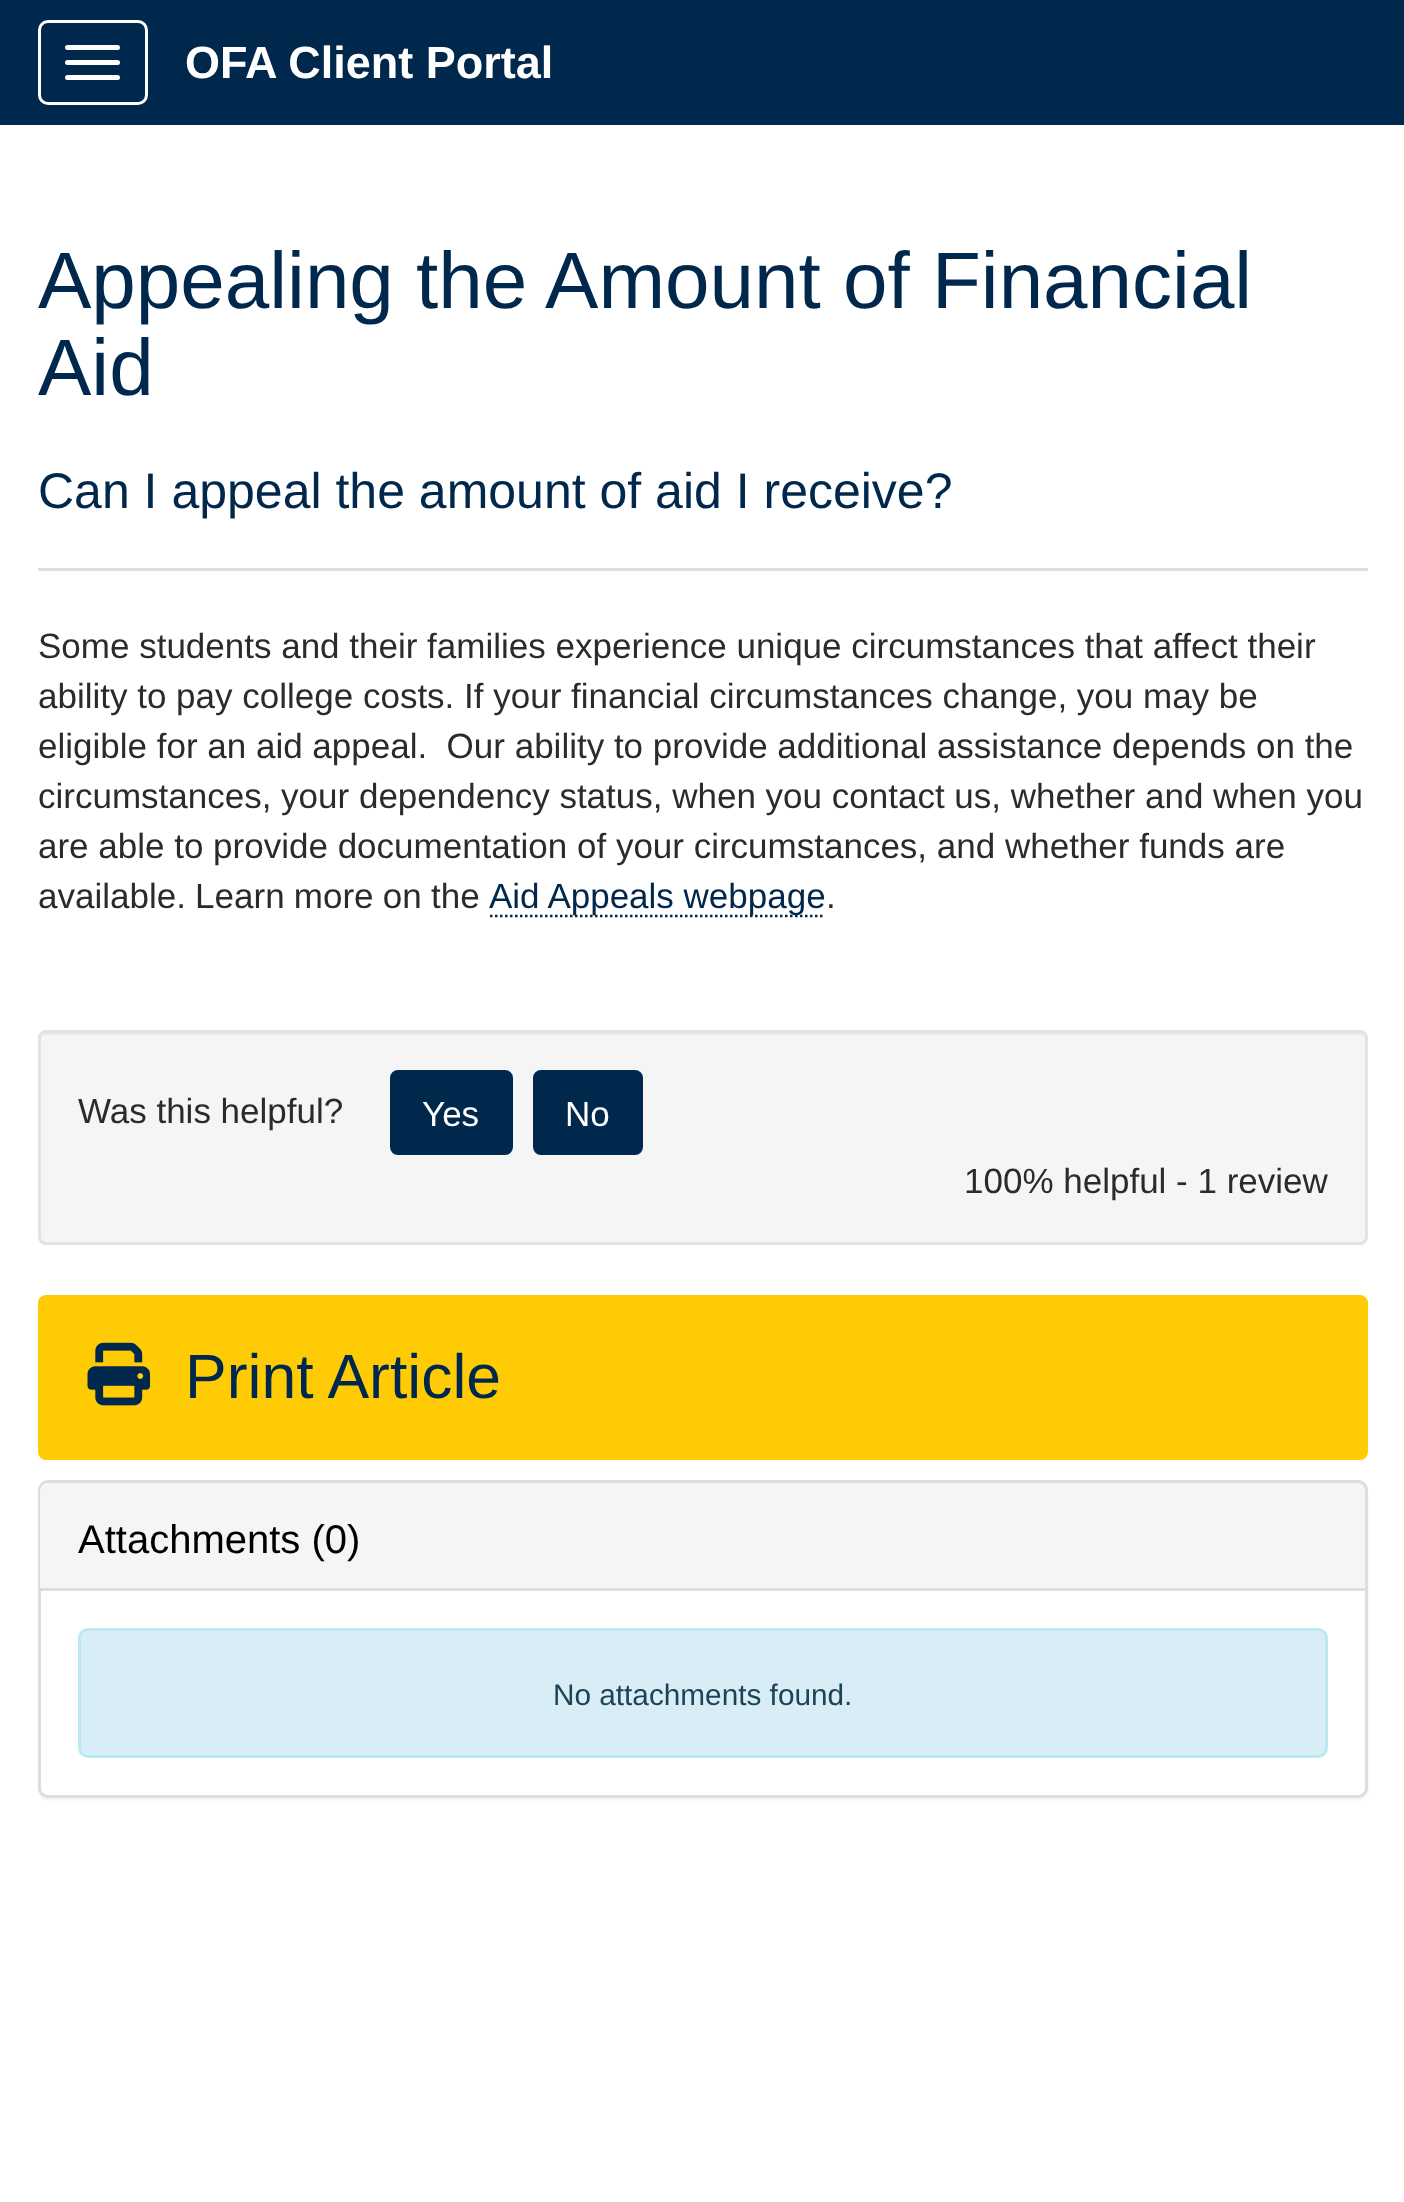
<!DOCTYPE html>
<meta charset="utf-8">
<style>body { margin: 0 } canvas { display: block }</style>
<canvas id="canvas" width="1404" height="2202"></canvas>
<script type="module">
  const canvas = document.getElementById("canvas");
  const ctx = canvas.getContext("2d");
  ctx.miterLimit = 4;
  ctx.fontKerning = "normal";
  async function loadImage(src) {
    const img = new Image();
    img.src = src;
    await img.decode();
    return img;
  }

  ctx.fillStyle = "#ffffff";
  ctx.fillRect(0, 0, 1404, 2202);
  ctx.fillStyle = "#00274c";
  ctx.fillRect(0, 0, 1404, 125);
  ctx.beginPath();
  ctx.roundRect(39.5, 21.5, 107, 82, 8.5);
  ctx.strokeStyle = "#ffffff";
  ctx.lineWidth = 3;
  ctx.stroke();
  ctx.fillStyle = "#ffffff";
  ctx.beginPath();
  ctx.roundRect(65, 45, 55, 5, 2.5);
  ctx.fill();
  ctx.beginPath();
  ctx.roundRect(65, 60, 55, 5, 2.5);
  ctx.fill();
  ctx.beginPath();
  ctx.roundRect(65, 75, 55, 5, 2.5);
  ctx.fill();
  ctx.font = "bold 45px Liberation Sans";
  ctx.fillText("OFA Client Portal", 185, 78);
  ctx.font = "80px Liberation Sans";
  ctx.fillStyle = "#00274c";
  ctx.fillText("Appealing the Amount of Financial", 38, 308);
  ctx.fillText("Aid", 38, 395);
  ctx.font = "50px Liberation Sans";
  ctx.fillText("Can I appeal the amount of aid I receive?", 38, 508);
  ctx.fillStyle = "#dddddd";
  ctx.fillRect(38, 568, 1330, 3);
  ctx.font = "35px Liberation Sans";
  ctx.fillStyle = "#2b2b2b";
  ctx.fillText("Some students and their families experience unique circumstances that affect their", 38, 658);
  ctx.fillText("ability to pay college costs. If your financial circumstances change, you may be", 38, 708);
  ctx.fillText("eligible for an aid appeal.  Our ability to provide additional assistance depends on the", 38, 758);
  ctx.fillText("circumstances, your dependency status, when you contact us, whether and when you", 38, 808);
  ctx.fillText("are able to provide documentation of your circumstances, and whether funds are", 38, 858);
  ctx.wordSpacing = "-0.5px";
  ctx.fillText("available. Learn more on the", 38, 908);
  ctx.beginPath();
  ctx.moveTo(490, 916);
  ctx.lineTo(825, 916);
  ctx.strokeStyle = "#00274c";
  ctx.lineWidth = 2.5;
  ctx.setLineDash([2.5, 2.5]);
  ctx.stroke();
  ctx.wordSpacing = "0px";
  ctx.fillStyle = "#00274c";
  ctx.fillText("Aid Appeals webpage", 489, 908);
  ctx.fillStyle = "#2b2b2b";
  ctx.fillText(".", 826, 908);
  ctx.fillStyle = "#f5f5f5";
  ctx.beginPath();
  ctx.roundRect(38, 1030, 1330, 215, 8);
  ctx.fill();
  ctx.fillStyle = "#e9e9e9";
  ctx.beginPath();
  ctx.moveTo(45, 1035);
  ctx.lineTo(1360, 1035);
  ctx.bezierCurveTo(1363, 1035, 1365, 1037, 1365, 1040);
  ctx.bezierCurveTo(1365, 1037, 1364, 1033, 1360, 1033);
  ctx.lineTo(45, 1033);
  ctx.bezierCurveTo(41, 1033, 40, 1037, 40, 1040);
  ctx.bezierCurveTo(40, 1037, 42, 1035, 45, 1035);
  ctx.closePath();
  ctx.fill();
  ctx.beginPath();
  ctx.roundRect(39.5, 1031.5, 1327, 212, 6.5);
  ctx.strokeStyle = "#e3e3e3";
  ctx.lineWidth = 3;
  ctx.setLineDash([]);
  ctx.stroke();
  ctx.fillStyle = "#2b2b2b";
  ctx.fillText("Was this helpful?", 78, 1123);
  ctx.fillStyle = "#00274c";
  ctx.beginPath();
  ctx.roundRect(391.5, 1071.5, 120, 82, 6.5);
  ctx.fill();
  ctx.strokeStyle = "#00274c";
  ctx.stroke();
  ctx.fillStyle = "#ffffff";
  ctx.fillText("Yes", 422, 1126);
  ctx.fillStyle = "#00274c";
  ctx.beginPath();
  ctx.roundRect(534.5, 1071.5, 107, 82, 6.5);
  ctx.fill();
  ctx.stroke();
  ctx.fillStyle = "#ffffff";
  ctx.fillText("No", 565, 1126);
  ctx.fillStyle = "#2b2b2b";
  ctx.fillText("100% helpful - 1 review", 964, 1193);
  ctx.fillStyle = "#ffcb05";
  ctx.beginPath();
  ctx.roundRect(38, 1295, 1330, 165, 8);
  ctx.fill();
  ctx.drawImage(await loadImage("img1.png"), 87, 1342, 63, 64);
  ctx.font = "62.5px Liberation Sans";
  ctx.fillStyle = "#00274c";
  ctx.fillText("Print Article", 185, 1398);
  ctx.fillStyle = "rgba(0, 0, 0, 0.05)";
  ctx.filter = "blur(1px)";
  ctx.beginPath();
  ctx.roundRect(38, 1483, 1330, 317, 10);
  ctx.fill();
  ctx.filter = "none";
  ctx.fillStyle = "#ffffff";
  ctx.beginPath();
  ctx.roundRect(39.5, 1481.5, 1327, 315, 8.5);
  ctx.fill();
  ctx.strokeStyle = "#dddddd";
  ctx.stroke();
  ctx.fillStyle = "#f5f5f5";
  ctx.beginPath();
  ctx.roundRect(40, 1483, 1325, 107, [8, 8, 0, 0]);
  ctx.fill();
  ctx.fillStyle = "#dddddd";
  ctx.fillRect(40, 1588, 1325, 3);
  ctx.font = "40px Liberation Sans";
  ctx.fillStyle = "#000000";
  ctx.fillText("Attachments (0)", 78, 1553);
  ctx.fillStyle = "#d9edf7";
  ctx.beginPath();
  ctx.roundRect(79.5, 1629.5, 1247, 127, 8.5);
  ctx.fill();
  ctx.strokeStyle = "#bce8f1";
  ctx.stroke();
  ctx.font = "29.75px Liberation Sans";
  ctx.fillStyle = "#1d4356";
  ctx.fillText("No attachments found.", 553, 1705);
</script>
